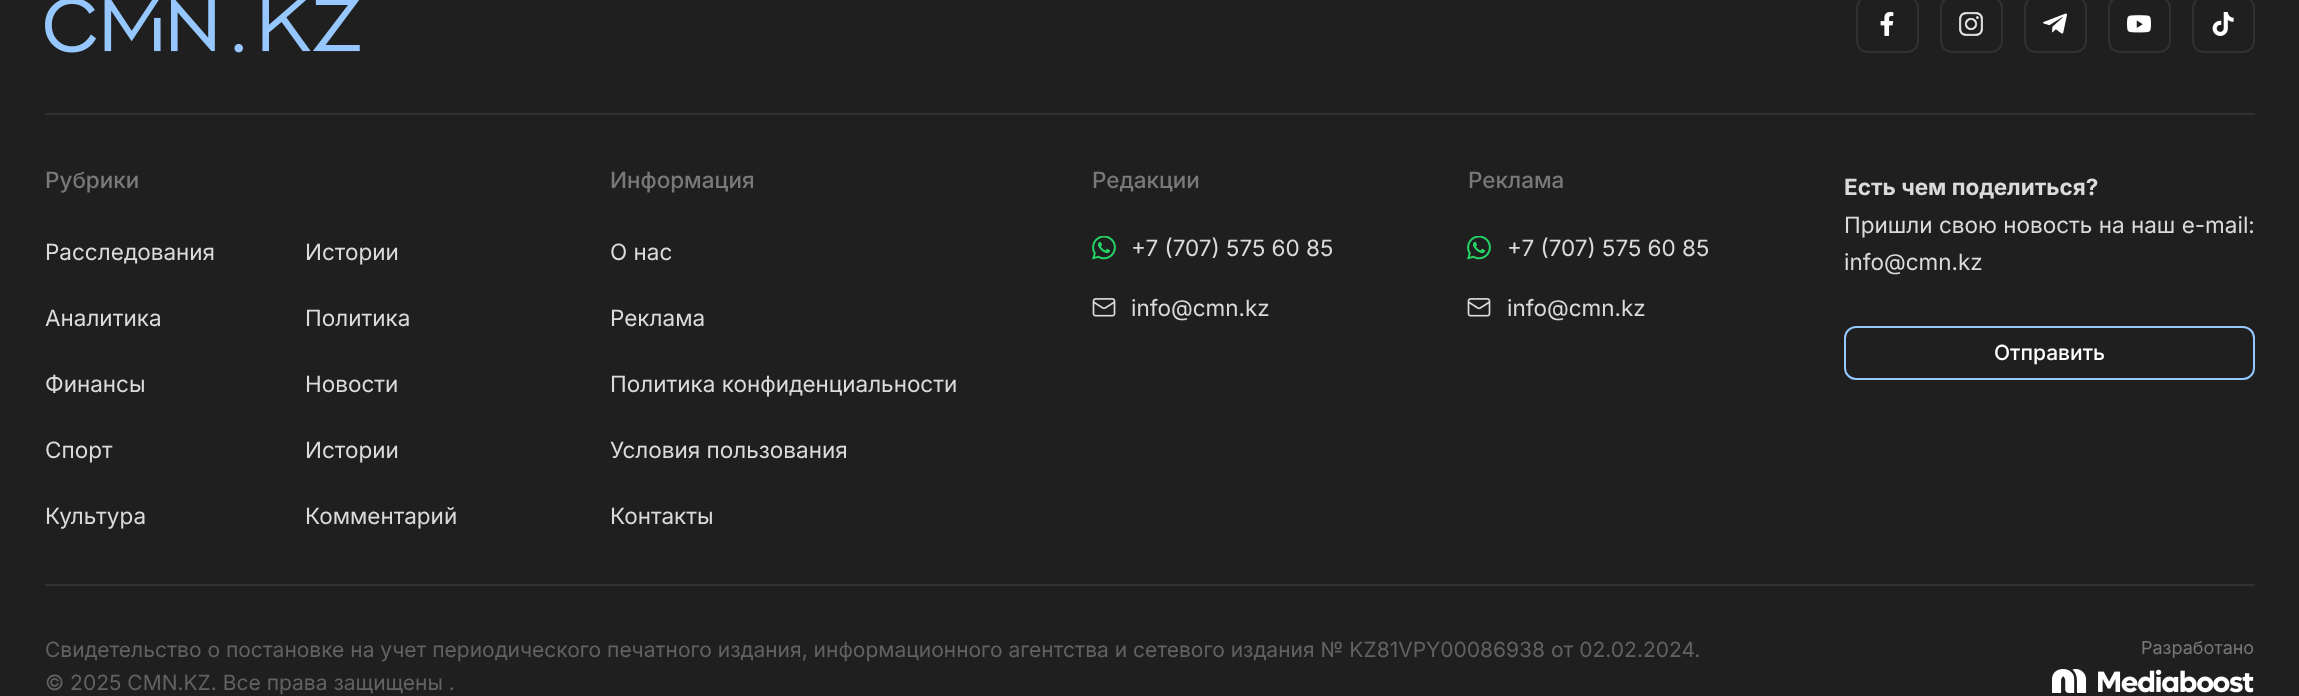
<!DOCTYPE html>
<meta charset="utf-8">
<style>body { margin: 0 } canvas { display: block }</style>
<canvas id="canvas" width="2299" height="696"></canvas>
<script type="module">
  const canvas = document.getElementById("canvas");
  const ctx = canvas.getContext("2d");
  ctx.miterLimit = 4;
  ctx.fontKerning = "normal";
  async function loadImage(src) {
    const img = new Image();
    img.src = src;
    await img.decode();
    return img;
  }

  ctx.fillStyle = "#1f1f1f";
  ctx.fillRect(0, 0, 2299, 696);
  ctx.fillStyle = "#313131";
  ctx.fillRect(45, 113, 2210, 2);
  ctx.drawImage(await loadImage("img1.png"), 45, 0, 315, 53);
  ctx.beginPath();
  ctx.roundRect(1857, -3, 61, 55, 11);
  ctx.strokeStyle = "#313131";
  ctx.lineWidth = 2;
  ctx.stroke();
  ctx.drawImage(await loadImage("img2.png"), 1880, 12, 14, 24);
  ctx.beginPath();
  ctx.roundRect(1941, -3, 61, 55, 11);
  ctx.stroke();
  ctx.drawImage(await loadImage("img3.png"), 1959, 12, 24, 24);
  ctx.beginPath();
  ctx.roundRect(2025, -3, 61, 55, 11);
  ctx.stroke();
  ctx.drawImage(await loadImage("img4.png"), 2043, 13, 24, 21);
  ctx.beginPath();
  ctx.roundRect(2109, -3, 61, 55, 11);
  ctx.stroke();
  ctx.drawImage(await loadImage("img5.png"), 2127, 15, 24, 18);
  ctx.beginPath();
  ctx.roundRect(2193, -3, 61, 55, 11);
  ctx.stroke();
  ctx.drawImage(await loadImage("img6.png"), 2212, 12, 22, 24);
  ctx.fillRect(45, 584, 2210, 2);
  ctx.font = "500 22.5px Inter";
  ctx.fillStyle = "#797979";
  ctx.fillText("Рубрики", 45, 188);
  ctx.font = "22.5px Inter";
  ctx.fillStyle = "#dbdbdb";
  ctx.fillText("Расследования", 45, 260);
  ctx.fillText("Истории", 305, 260);
  ctx.fillText("Аналитика", 45, 326);
  ctx.fillText("Политика", 305, 326);
  ctx.fillText("Финансы", 45, 392);
  ctx.fillText("Новости", 305, 392);
  ctx.fillText("Cпорт", 45, 458);
  ctx.fillText("Истории", 305, 458);
  ctx.fillText("Культура", 45, 524);
  ctx.fillText("Комментарий", 305, 524);
  ctx.font = "500 22.5px Inter";
  ctx.fillStyle = "#797979";
  ctx.fillText("Информация", 610, 188);
  ctx.font = "22.5px Inter";
  ctx.fillStyle = "#dbdbdb";
  ctx.fillText("О нас", 610, 260);
  ctx.fillText("Реклама", 610, 326);
  ctx.fillText("Политика конфиденциальности", 610, 392);
  ctx.fillText("Условия пользования", 610, 458);
  ctx.fillText("Контакты", 610, 524);
  ctx.font = "500 22.5px Inter";
  ctx.fillStyle = "#797979";
  ctx.fillText("Редакции", 1092, 188);
  ctx.drawImage(await loadImage("img7.png"), 1092, 236, 24, 24);
  ctx.font = "22.5px Inter";
  ctx.fillStyle = "#dbdbdb";
  ctx.fillText("+7 (707) 575 60 85", 1131, 256);
  ctx.drawImage(await loadImage("img8.png"), 1092, 298, 24, 19);
  ctx.fillText("info@cmn.kz", 1131, 316);
  ctx.font = "500 22.5px Inter";
  ctx.fillStyle = "#797979";
  ctx.fillText("Реклама", 1468, 188);
  ctx.drawImage(await loadImage("img7.png"), 1467, 236, 24, 24);
  ctx.font = "22.5px Inter";
  ctx.fillStyle = "#dbdbdb";
  ctx.fillText("+7 (707) 575 60 85", 1507, 256);
  ctx.drawImage(await loadImage("img8.png"), 1467, 298, 24, 19);
  ctx.fillText("info@cmn.kz", 1507, 316);
  ctx.font = "bold 22.5px Inter";
  ctx.fillText("Есть чем поделиться?", 1844, 195);
  ctx.font = "22.5px Inter";
  ctx.fillText("Пришли свою новость на наш e-mail:", 1844, 233);
  ctx.fillText("info@cmn.kz", 1844, 270);
  ctx.beginPath();
  ctx.roundRect(1845, 327, 409, 52, 11);
  ctx.strokeStyle = "#96c7fe";
  ctx.stroke();
  ctx.font = "500 21px Inter";
  ctx.fillStyle = "#ffffff";
  ctx.fillText("Отправить", 1994, 360);
  ctx.font = "21px Inter";
  ctx.fillStyle = "#626262";
  ctx.fillText("Свидетельство о постановке на учет периодического печатного издания, информационного агентства и сетевого издания № KZ81VPY00086938 от 02.02.2024.", 45, 657);
  ctx.fillText("© 2025 CMN.KZ. Все права защищены .", 45, 690);
  ctx.font = "18px Inter";
  ctx.fillStyle = "#797979";
  ctx.fillText("Разработано", 2141, 654);
  ctx.drawImage(await loadImage("img9.png"), 2052, 669, 202, 24);
</script>
